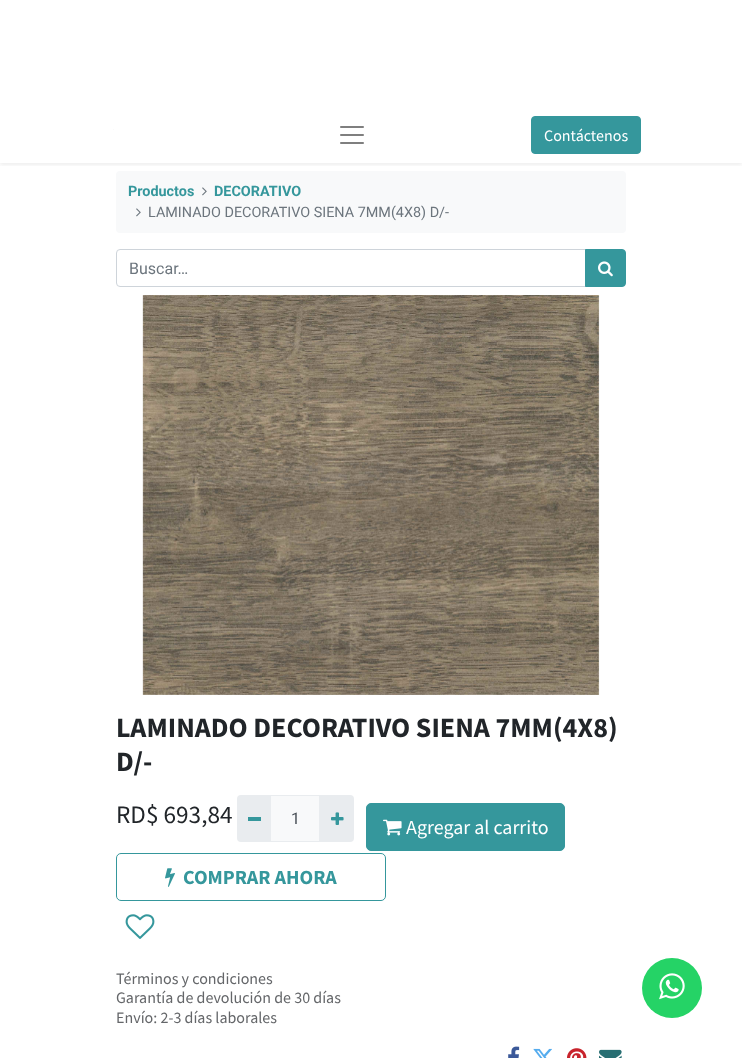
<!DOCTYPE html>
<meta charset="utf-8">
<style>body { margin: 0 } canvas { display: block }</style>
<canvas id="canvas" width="742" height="1058"></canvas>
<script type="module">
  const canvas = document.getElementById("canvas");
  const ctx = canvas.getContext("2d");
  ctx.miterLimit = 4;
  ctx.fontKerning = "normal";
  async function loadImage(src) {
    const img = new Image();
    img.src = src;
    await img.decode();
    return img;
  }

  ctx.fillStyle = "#ffffff";
  ctx.fillRect(0, 0, 742, 1058);
  ctx.fillStyle = "#f8f9fa";
  ctx.beginPath();
  ctx.roundRect(116, 171, 510, 62, 4);
  ctx.fill();
  ctx.save();
  ctx.beginPath();
  ctx.rect(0, 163, 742, 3);
  ctx.clip();
  ctx.fillStyle = "rgba(0, 0, 0, 0.07)";
  ctx.filter = "blur(2px)";
  ctx.beginPath();
  ctx.rect(0, 109, 742, 56);
  ctx.fill();
  ctx.filter = "none";
  ctx.restore();
  ctx.fillStyle = "#fafafa";
  ctx.fillRect(113, 129, 1, 1);
  ctx.drawImage(await loadImage("img1.png"), 340, 126, 24, 18);
  ctx.fillStyle = "#35979c";
  ctx.beginPath();
  ctx.roundRect(531.5, 116.5, 109, 37, 3.5);
  ctx.fill();
  ctx.strokeStyle = "#35979c";
  ctx.stroke();
  ctx.font = "16px Source Sans Pro";
  ctx.fillStyle = "#ffffff";
  ctx.fillText("Contáctenos", 544, 141);
  ctx.font = "bold 14.4px Roboto";
  ctx.fillStyle = "#35979c";
  ctx.fillText("Productos", 128, 196);
  ctx.drawImage(await loadImage("img2.png"), 202, 187, 5, 9);
  ctx.fillText("DECORATIVO", 214, 196);
  ctx.drawImage(await loadImage("img2.png"), 136, 208, 5, 9);
  ctx.font = "14.4px Roboto";
  ctx.fillStyle = "#6c757d";
  ctx.fillText("LAMINADO DECORATIVO SIENA 7MM(4X8) D/-", 148, 217);
  ctx.beginPath();
  ctx.roundRect(116.5, 249.5, 469, 37, [3.5, 0, 0, 3.5]);
  ctx.strokeStyle = "#ced4da";
  ctx.stroke();
  ctx.font = "16px Roboto";
  ctx.fillText("Buscar…", 129, 274);
  ctx.fillStyle = "#35979c";
  ctx.beginPath();
  ctx.roundRect(585.5, 249.5, 40, 37, [0, 3.5, 3.5, 0]);
  ctx.fill();
  ctx.strokeStyle = "#35979c";
  ctx.stroke();
  ctx.drawImage(await loadImage("img3.png"), 598, 261, 15, 16);
  ctx.drawImage(await loadImage("img4.png"), 142, 295, 458, 400);
  ctx.font = "bold 28px Source Sans Pro";
  ctx.fillStyle = "#212529";
  ctx.fillText("LAMINADO DECORATIVO SIENA 7MM(4X8)", 116, 737);
  ctx.fillText("D/-", 116, 771);
  ctx.font = "25.25px Source Sans Pro";
  ctx.fillText("RD$ 693,84", 116, 823);
  ctx.fillStyle = "#f8f9fa";
  ctx.beginPath();
  ctx.rect(270.5, 795.5, 49, 46);
  ctx.fill();
  ctx.strokeStyle = "#e9ecef";
  ctx.stroke();
  ctx.fillStyle = "#e9ecef";
  ctx.beginPath();
  ctx.roundRect(237, 795, 34, 47, [4, 0, 0, 4]);
  ctx.fill();
  ctx.fillStyle = "#35979c";
  ctx.fillRect(248, 817, 13, 4);
  ctx.font = "16px Roboto";
  ctx.fillStyle = "#495057";
  ctx.fillText("1", 291, 824);
  ctx.fillStyle = "#e9ecef";
  ctx.beginPath();
  ctx.roundRect(319, 795, 35, 47, [0, 4, 4, 0]);
  ctx.fill();
  ctx.drawImage(await loadImage("img5.png"), 331, 812, 13, 13);
  ctx.fillStyle = "#35979c";
  ctx.beginPath();
  ctx.roundRect(366.5, 803.5, 198, 47, 4.5);
  ctx.fill();
  ctx.strokeStyle = "#35979c";
  ctx.stroke();
  ctx.drawImage(await loadImage("img6.png"), 383, 819, 19, 17);
  ctx.font = "20px Source Sans Pro";
  ctx.fillStyle = "#ffffff";
  ctx.fillText("Agregar al carrito", 406, 834);
  ctx.beginPath();
  ctx.roundRect(116.5, 853.5, 269, 47, 4.5);
  ctx.stroke();
  ctx.drawImage(await loadImage("img7.png"), 165, 868, 10, 19);
  ctx.font = "bold 20px Source Sans Pro";
  ctx.fillStyle = "#35979c";
  ctx.fillText("COMPRAR AHORA", 183, 884);
  ctx.drawImage(await loadImage("img8.png"), 125, 914, 30, 25);
  ctx.font = "16px Source Sans Pro";
  ctx.fillStyle = "#646669";
  ctx.fillText("Términos y condiciones", 116, 984);
  ctx.fillText("Garantía de devolución de 30 días", 116, 1003);
  ctx.fillText("Envío: 2-3 días laborales", 116, 1023);
  ctx.drawImage(await loadImage("img9.png"), 508, 1046, 12, 12);
  ctx.drawImage(await loadImage("img10.png"), 533, 1048, 19, 10);
  ctx.drawImage(await loadImage("img11.png"), 567, 1048, 20, 10);
  ctx.drawImage(await loadImage("img12.png"), 599, 1049, 23, 9);
  ctx.fillStyle = "#25d366";
  ctx.beginPath();
  ctx.arc(672, 988, 30, 0, Math.PI * 2);
  ctx.fill();
  ctx.drawImage(await loadImage("img13.png"), 659, 973, 26, 27);
</script>
